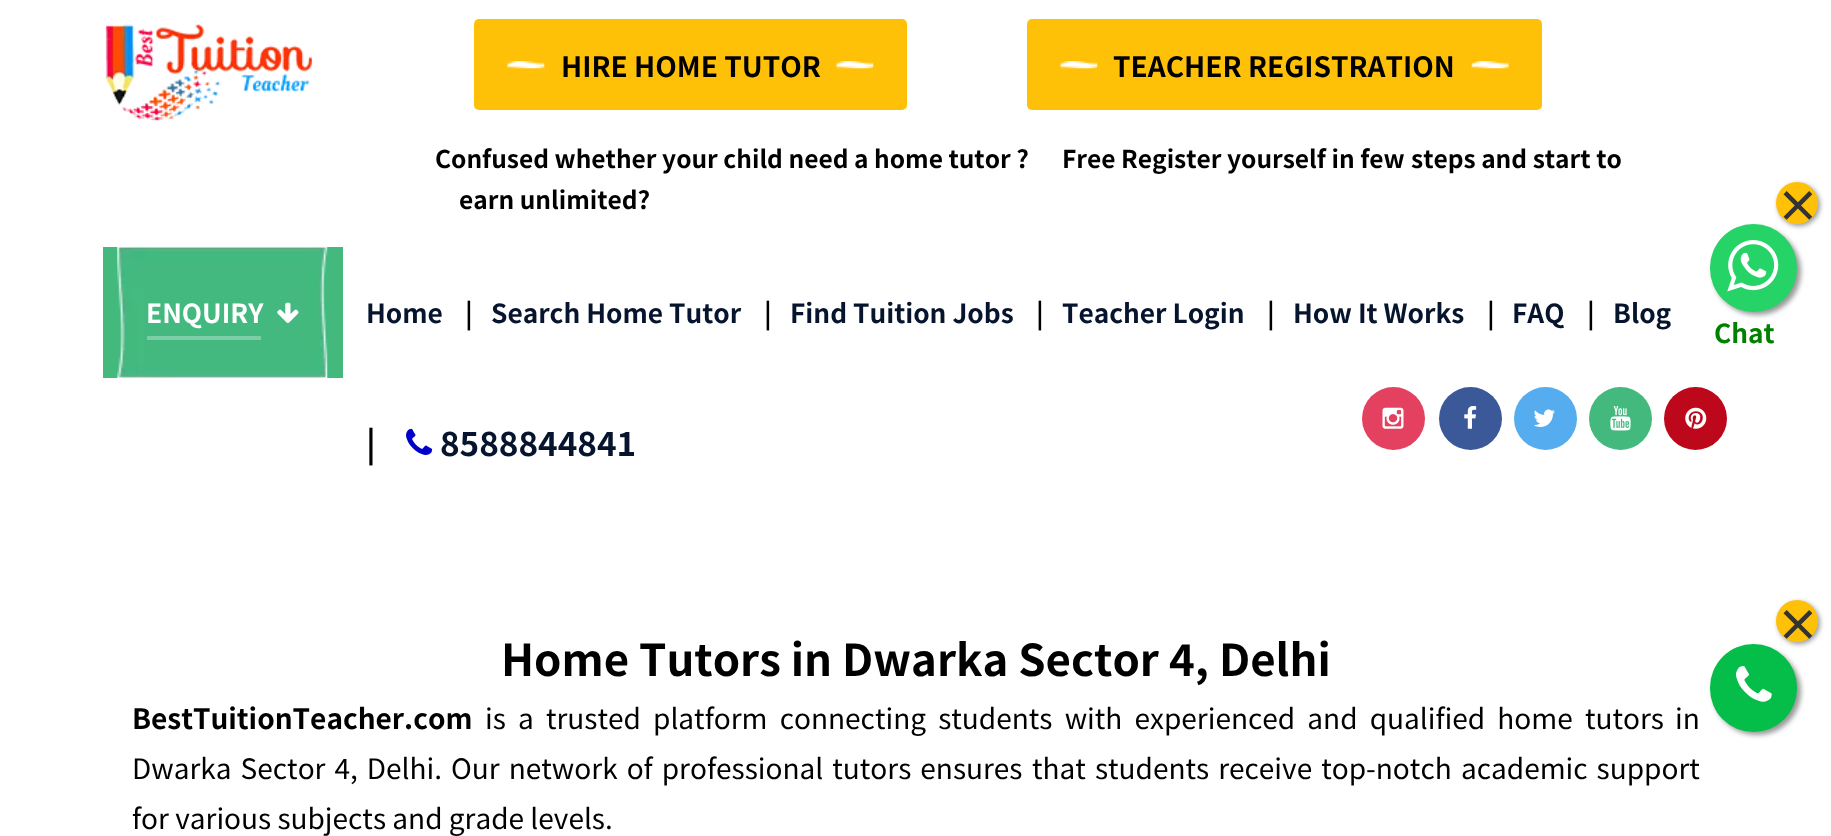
<!DOCTYPE html>
<meta charset="utf-8">
<style>body { margin: 0 } canvas { display: block }</style>
<canvas id="canvas" width="1831" height="836"></canvas>
<script type="module">
  const canvas = document.getElementById("canvas");
  const ctx = canvas.getContext("2d");
  ctx.miterLimit = 4;
  ctx.fontKerning = "none";
  async function loadImage(src) {
    const img = new Image();
    img.src = src;
    await img.decode();
    return img;
  }

  ctx.fillStyle = "#ffffff";
  ctx.fillRect(0, 0, 1831, 836);
  ctx.drawImage(await loadImage("img1.png"), 105, 24, 208, 97);
  ctx.fillStyle = "#ffc107";
  ctx.beginPath();
  ctx.roundRect(474, 19, 433, 91, 5);
  ctx.fill();
  ctx.drawImage(await loadImage("img2.png"), 507, 61, 38, 8);
  ctx.font = "bold 28px Noto Sans TC";
  ctx.fillStyle = "#000000";
  ctx.fillText("HIRE HOME TUTOR", 561, 77);
  ctx.drawImage(await loadImage("img2.png"), 836, 61, 38, 8);
  ctx.fillStyle = "#ffc107";
  ctx.beginPath();
  ctx.roundRect(1027, 19, 515, 91, 5);
  ctx.fill();
  ctx.drawImage(await loadImage("img2.png"), 1060, 61, 38, 8);
  ctx.fillStyle = "#000000";
  ctx.fillText("TEACHER REGISTRATION", 1113, 77);
  ctx.drawImage(await loadImage("img3.png"), 1471, 61, 38, 8);
  ctx.font = "bold 24.5px Noto Sans TC";
  ctx.fillText("Confused whether your child need a home tutor ?", 435, 168);
  ctx.fillText("Free Register yourself in few", 1062, 168);
  ctx.fillText("steps and start to", 1411, 168);
  ctx.fillText("earn unlimited?", 459, 209);
  ctx.fillStyle = "#43b97e";
  ctx.fillRect(103, 247, 240, 131);
  ctx.drawImage(await loadImage("img4.png"), 117, 246, 211, 132);
  ctx.font = "bold 26.25px Noto Sans TC";
  ctx.fillStyle = "#ffffff";
  ctx.fillText("ENQUIRY", 146, 323);
  ctx.drawImage(await loadImage("img5.png"), 277, 302, 22, 21);
  ctx.fillStyle = "#7bcea5";
  ctx.fillRect(147, 336, 114, 4);
  ctx.fillStyle = "#06142d";
  ctx.fillText("Home", 366, 323);
  ctx.fillStyle = "#000000";
  ctx.fillText("|", 465, 323);
  ctx.fillStyle = "#06142d";
  ctx.fillText("Search Home Tutor", 491, 323);
  ctx.fillStyle = "#000000";
  ctx.fillText("|", 764, 323);
  ctx.fillStyle = "#06142d";
  ctx.fillText("Find Tuition Jobs", 790, 323);
  ctx.fillStyle = "#000000";
  ctx.fillText("|", 1036, 323);
  ctx.fillStyle = "#06142d";
  ctx.fillText("Teacher Login", 1062, 323);
  ctx.fillStyle = "#000000";
  ctx.fillText("|", 1267, 323);
  ctx.fillStyle = "#06142d";
  ctx.fillText("How It Works", 1293, 323);
  ctx.fillStyle = "#000000";
  ctx.fillText("|", 1487, 323);
  ctx.fillStyle = "#06142d";
  ctx.fillText("FAQ", 1512, 323);
  ctx.fillStyle = "#000000";
  ctx.fillText("|", 1587, 323);
  ctx.fillStyle = "#06142d";
  ctx.fillText("Blog", 1613, 323);
  ctx.font = "bold 33.25px Noto Sans TC";
  ctx.fillStyle = "#000000";
  ctx.fillText("|", 366, 456);
  ctx.drawImage(await loadImage("img6.png"), 406, 428, 27, 27);
  ctx.fillStyle = "#06142d";
  ctx.fillText("8588844841", 440, 456);
  ctx.fillStyle = "#e4405f";
  ctx.beginPath();
  ctx.arc(1393.5, 418.5, 31.5, 0, Math.PI * 2);
  ctx.fill();
  ctx.drawImage(await loadImage("img7.png"), 1382, 407, 22, 22);
  ctx.fillStyle = "#3b5999";
  ctx.beginPath();
  ctx.arc(1470.5, 418.5, 31.5, 0, Math.PI * 2);
  ctx.fill();
  ctx.drawImage(await loadImage("img8.png"), 1464, 406, 13, 23);
  ctx.fillStyle = "#55acee";
  ctx.beginPath();
  ctx.arc(1545.5, 418.5, 31.5, 0, Math.PI * 2);
  ctx.fill();
  ctx.drawImage(await loadImage("img9.png"), 1533, 409, 22, 18);
  ctx.fillStyle = "#43b97e";
  ctx.beginPath();
  ctx.arc(1620.5, 418.5, 31.5, 0, Math.PI * 2);
  ctx.fill();
  ctx.drawImage(await loadImage("img10.png"), 1610, 406, 21, 25);
  ctx.fillStyle = "#bd081c";
  ctx.beginPath();
  ctx.arc(1695.5, 418.5, 31.5, 0, Math.PI * 2);
  ctx.fill();
  ctx.drawImage(await loadImage("img11.png"), 1685, 407, 22, 22);
  ctx.fillStyle = "#999999";
  ctx.filter = "blur(2.5px)";
  ctx.beginPath();
  ctx.roundRect(1713, 228, 88, 87, 43.5);
  ctx.fill();
  ctx.filter = "none";
  ctx.fillStyle = "#25d366";
  ctx.beginPath();
  ctx.roundRect(1710, 224, 87, 88, 43.5);
  ctx.fill();
  ctx.fillStyle = "#999999";
  ctx.filter = "blur(2.5px)";
  ctx.beginPath();
  ctx.roundRect(1778, 184, 42, 42, 21);
  ctx.fill();
  ctx.filter = "none";
  ctx.fillStyle = "#ffc107";
  ctx.beginPath();
  ctx.arc(1797, 203, 21, 0, Math.PI * 2);
  ctx.fill();
  ctx.font = "bold 43.75px Noto Sans TC";
  ctx.fillStyle = "#333333";
  ctx.fillText("×", 1776, 222);
  ctx.drawImage(await loadImage("img12.png"), 1727, 240, 52, 52);
  ctx.font = "bold 26.25px Noto Sans TC";
  ctx.fillStyle = "#008000";
  ctx.fillText("Chat", 1714, 343);
  ctx.fillStyle = "#999999";
  ctx.filter = "blur(2.5px)";
  ctx.beginPath();
  ctx.roundRect(1713, 648, 88, 87, 43.5);
  ctx.fill();
  ctx.filter = "none";
  ctx.fillStyle = "#04be49";
  ctx.beginPath();
  ctx.roundRect(1710, 644, 87, 88, 43.5);
  ctx.fill();
  ctx.fillStyle = "#999999";
  ctx.filter = "blur(2.5px)";
  ctx.beginPath();
  ctx.roundRect(1778, 602, 42, 42, 21);
  ctx.fill();
  ctx.filter = "none";
  ctx.fillStyle = "#ffc107";
  ctx.beginPath();
  ctx.arc(1797, 621, 21, 0, Math.PI * 2);
  ctx.fill();
  ctx.font = "bold 43.75px Noto Sans TC";
  ctx.fillStyle = "#333333";
  ctx.fillText("×", 1776, 641);
  ctx.fillStyle = "#000000";
  ctx.fillText("Home Tutors in Dwarka Sector", 501, 676);
  ctx.fillText("4, Delhi", 1169, 676);
  ctx.font = "bold 28px Noto Sans TC";
  ctx.fillText("BestTuitionTeacher.com", 132, 729);
  ctx.wordSpacing = "5.9px";
  ctx.font = "28px Noto Sans TC";
  ctx.fillText("is a trusted platform connecting students with experienced and qualified home tutors", 485, 729);
  ctx.fillText("in", 1675, 729);
  ctx.wordSpacing = "2.75px";
  ctx.fillText("Dwarka Sector 4, Delhi. Our network of professional tutors ensures", 132, 779);
  ctx.fillText("that students receive top-notch", 1032, 779);
  ctx.fillText("academic support", 1461, 779);
  ctx.wordSpacing = "0px";
  ctx.fillText("for various subjects and grade levels.", 132, 829);
  ctx.drawImage(await loadImage("img13.png"), 1736, 666, 36, 36);
</script>
